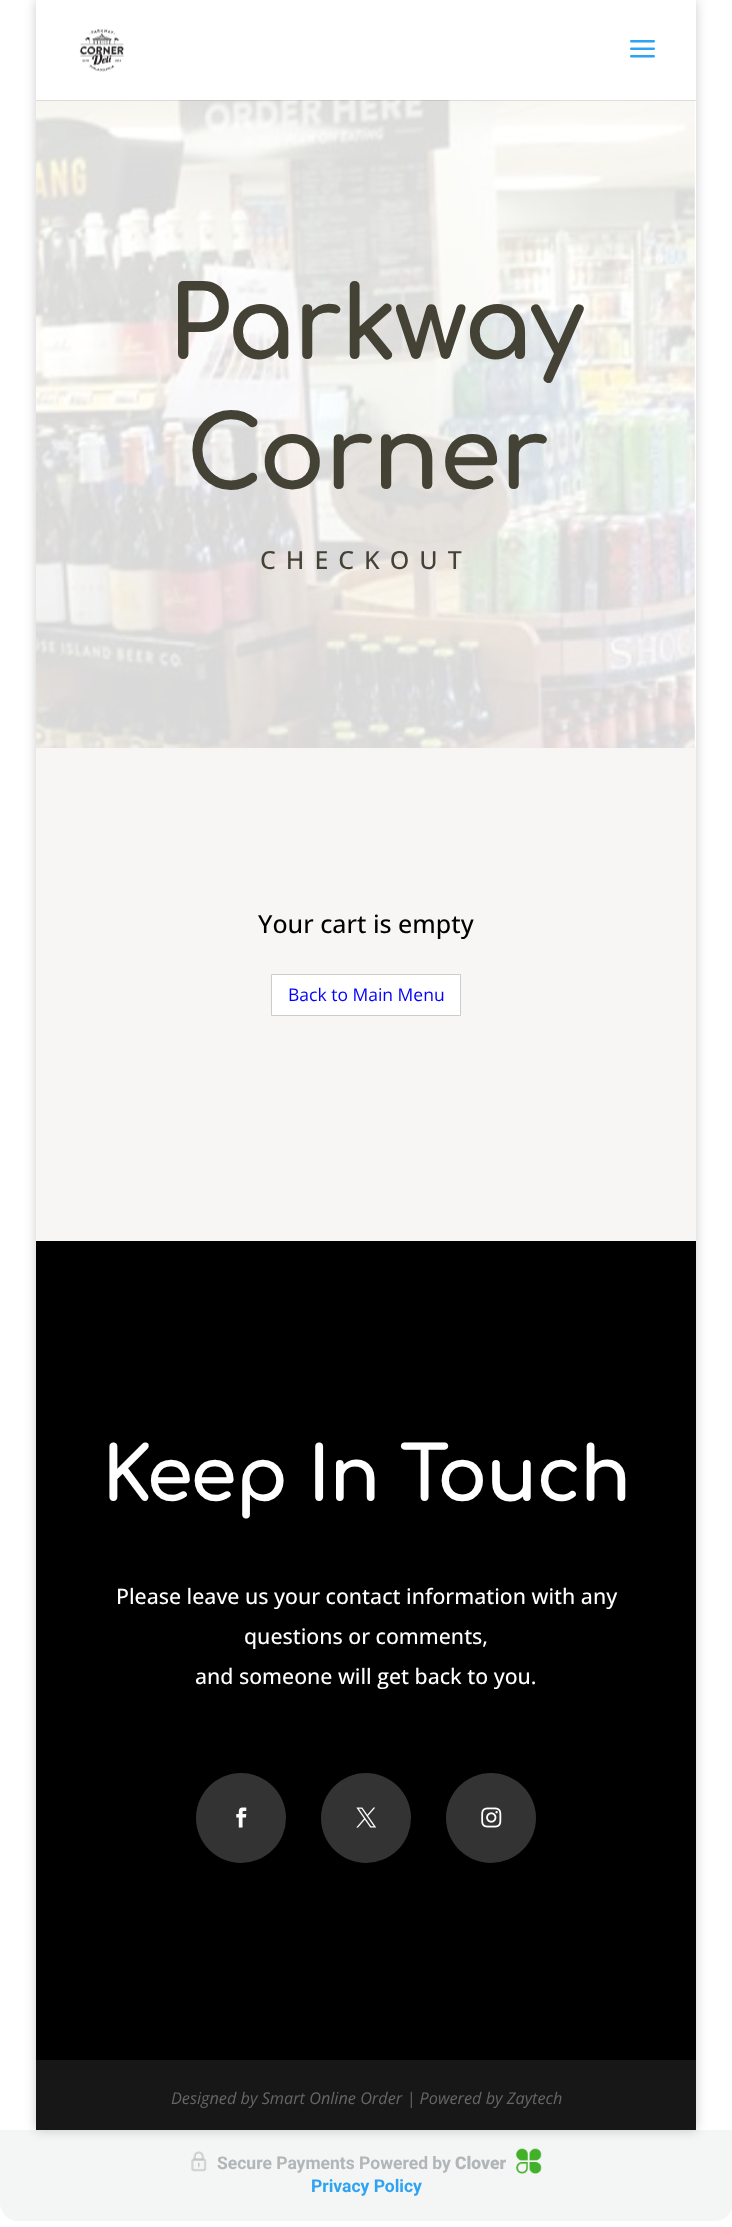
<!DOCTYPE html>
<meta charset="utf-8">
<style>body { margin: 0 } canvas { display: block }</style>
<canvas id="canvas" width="732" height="2227"></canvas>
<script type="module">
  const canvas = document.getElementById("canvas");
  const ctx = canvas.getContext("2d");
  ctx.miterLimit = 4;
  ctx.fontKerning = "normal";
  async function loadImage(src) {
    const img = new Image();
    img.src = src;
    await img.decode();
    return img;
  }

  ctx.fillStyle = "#ffffff";
  ctx.fillRect(0, 0, 732, 2227);
  ctx.fillStyle = "#f4f5f5";
  ctx.beginPath();
  ctx.moveTo(0, 2130);
  ctx.lineTo(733, 2130);
  ctx.lineTo(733, 2203);
  ctx.bezierCurveTo(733, 2213, 725, 2221, 715, 2221);
  ctx.lineTo(18, 2221);
  ctx.bezierCurveTo(8, 2221, 0, 2213, 0, 2203);
  ctx.closePath();
  ctx.fill();
  ctx.drawImage(await loadImage("img8.png"), 516, 2148, 26, 26);
  ctx.save();
  ctx.beginPath();
  ctx.moveTo(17, 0);
  ctx.lineTo(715, 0);
  ctx.lineTo(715, 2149);
  ctx.lineTo(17, 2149);
  ctx.closePath();
  ctx.moveTo(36, 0);
  ctx.lineTo(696, 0);
  ctx.lineTo(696, 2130);
  ctx.lineTo(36, 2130);
  ctx.closePath();
  ctx.clip("evenodd");
  ctx.fillStyle = "rgba(0, 0, 0, 0.2)";
  ctx.filter = "blur(6px)";
  ctx.beginPath();
  ctx.rect(36, 0, 660, 2130);
  ctx.fill();
  ctx.filter = "none";
  ctx.restore();
  ctx.drawImage(await loadImage("img3.png"), 36, 100, 659, 648);
  ctx.fillStyle = "rgba(255, 255, 255, 0.85)";
  ctx.fillRect(36, 100, 659, 648);
  ctx.fillStyle = "rgba(0, 0, 0, 0.1)";
  ctx.beginPath();
  ctx.moveTo(36, 1);
  ctx.lineTo(36, 101);
  ctx.lineTo(696, 101);
  ctx.lineTo(696, 100);
  ctx.lineTo(36, 100);
  ctx.closePath();
  ctx.fill();
  ctx.fillStyle = "#ffffff";
  ctx.fillRect(36, 0, 1, 100);
  ctx.drawImage(await loadImage("img1.png"), 79, 29, 45, 43);
  ctx.drawImage(await loadImage("img2.png"), 630, 40, 25, 18);
  ctx.letterSpacing = "-1.25px";
  ctx.font = "bold 100px Comfortaa";
  ctx.fillStyle = "#444235";
  ctx.fillText("Parkway", 168, 359);
  ctx.fillText("Corner", 186, 489);
  ctx.letterSpacing = "10px";
  ctx.font = "500 25px Open Sans";
  ctx.fillText("CHECKOUT", 260, 569);
  ctx.fillStyle = "rgba(209, 197, 186, 0.16)";
  ctx.fillRect(36, 748, 660, 493);
  ctx.letterSpacing = "0px";
  ctx.fillStyle = "#000000";
  ctx.fillText("Your cart is empty", 258, 933);
  ctx.fillStyle = "#ffffff";
  ctx.beginPath();
  ctx.rect(271.5, 974.5, 189, 41);
  ctx.fill();
  ctx.strokeStyle = "#cccccc";
  ctx.stroke();
  ctx.font = "17.5px Open Sans";
  ctx.fillStyle = "#0000ff";
  ctx.fillText("Back to Main Menu", 288, 1001);
  ctx.fillStyle = "#000000";
  ctx.fillRect(36, 1241, 660, 819);
  ctx.letterSpacing = "-1.25px";
  ctx.font = "bold 75px Comfortaa";
  ctx.fillStyle = "#ffffff";
  ctx.fillText("Keep In Touch", 102, 1501);
  ctx.letterSpacing = "0px";
  ctx.font = "500 21.25px Open Sans";
  ctx.fillText("Please leave us your contact information with any", 116, 1604);
  ctx.fillText("questions or comments,", 244, 1644);
  ctx.fillText("and someone will get back to you.", 195, 1684);
  ctx.fillStyle = "#333333";
  ctx.beginPath();
  ctx.arc(241, 1818, 45, 0, Math.PI * 2);
  ctx.fill();
  ctx.drawImage(await loadImage("img4.png"), 236, 1807, 11, 21);
  ctx.beginPath();
  ctx.arc(366, 1818, 45, 0, Math.PI * 2);
  ctx.fill();
  ctx.drawImage(await loadImage("img5.png"), 356, 1807, 21, 21);
  ctx.beginPath();
  ctx.arc(491, 1818, 45, 0, Math.PI * 2);
  ctx.fill();
  ctx.drawImage(await loadImage("img6.png"), 481, 1807, 21, 21);
  ctx.fillStyle = "#171717";
  ctx.fillRect(36, 2060, 660, 70);
  ctx.font = "italic 16.25px Open Sans";
  ctx.fillStyle = "#666666";
  ctx.fillText("Designed by Smart Online Order | Powered by Zaytech", 171, 2104);
  ctx.drawImage(await loadImage("img7.png"), 191, 2151, 16, 21);
  ctx.font = "bold 17.5px Roboto";
  ctx.fillStyle = "#b1b6b8";
  ctx.fillText("Secure Payments Powered by", 217, 2169);
  ctx.font = "900 17.5px Roboto";
  ctx.fillText("Clover", 455, 2169);
  ctx.font = "bold 17.5px Roboto";
  ctx.fillStyle = "#2ea3f2";
  ctx.fillText("Privacy Policy", 311, 2192);
</script>
